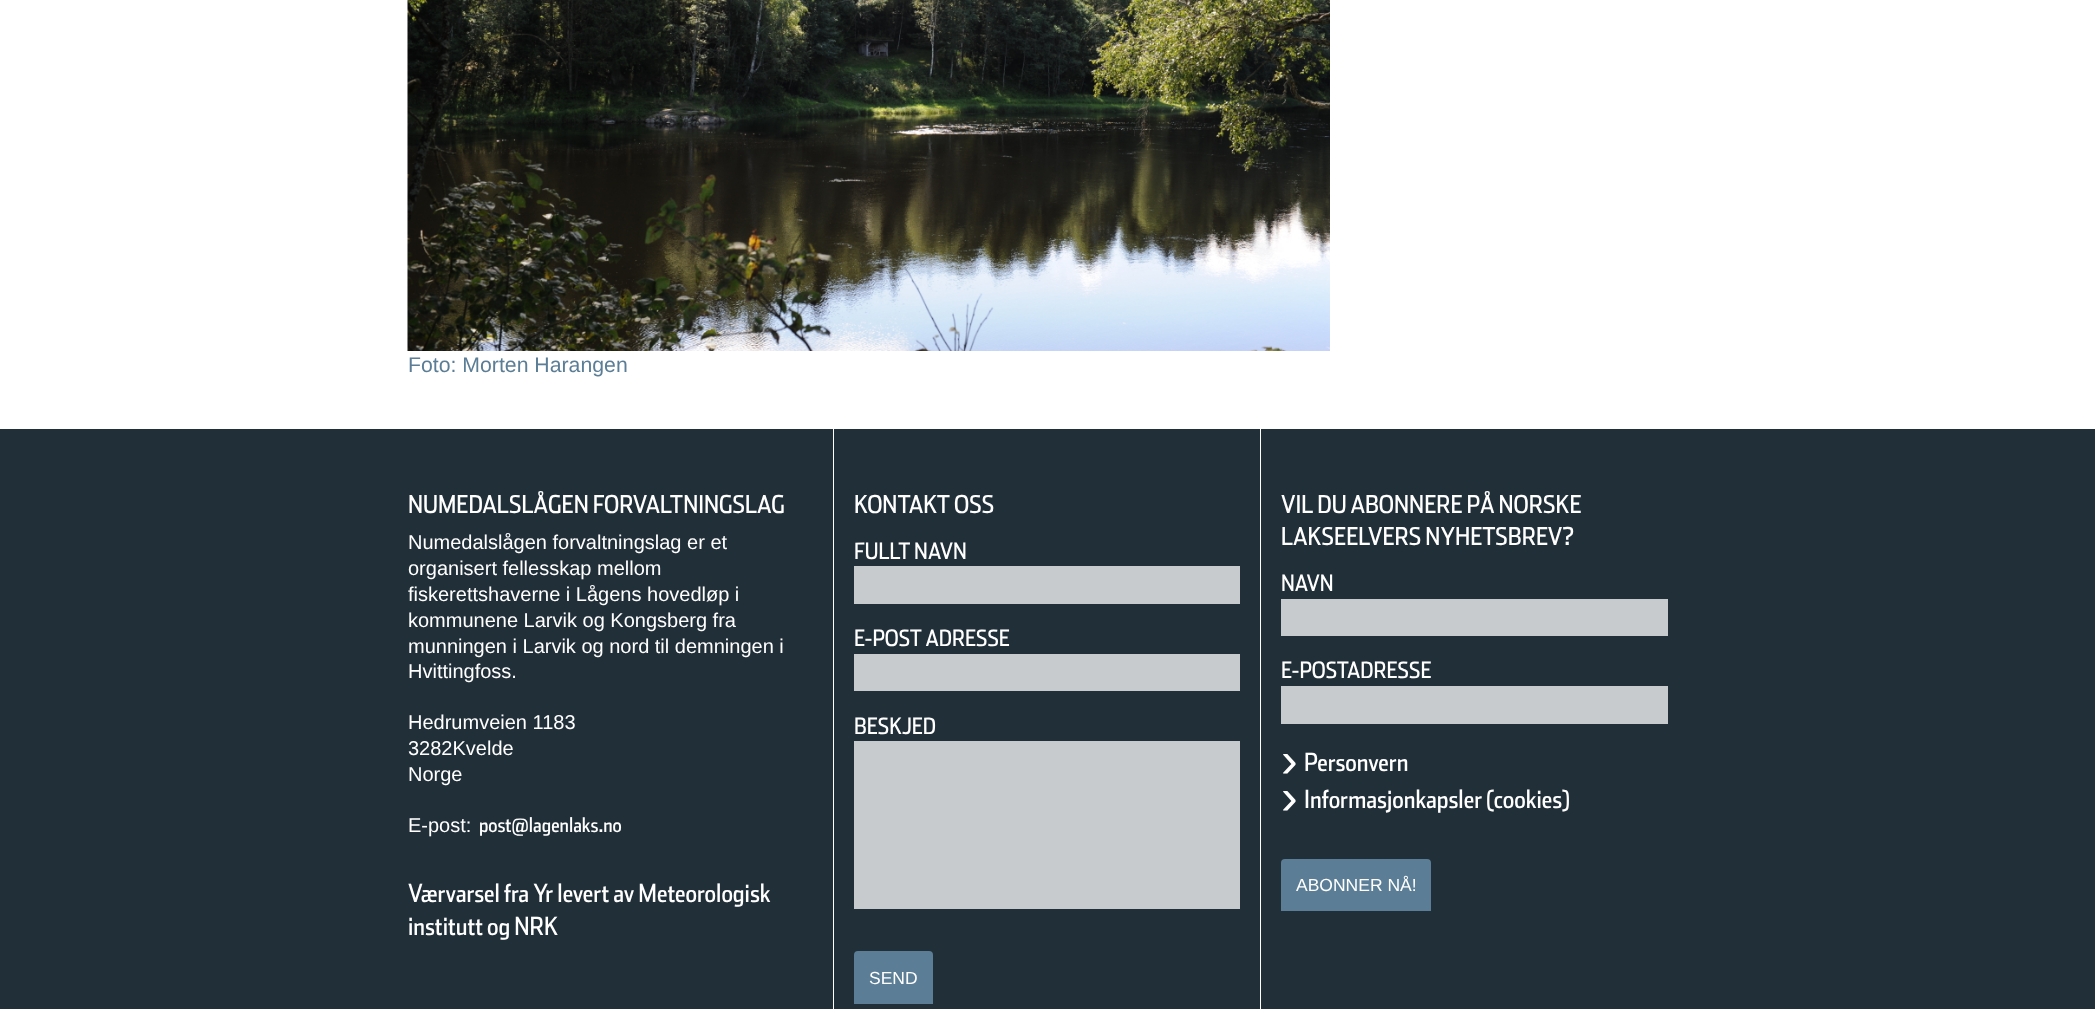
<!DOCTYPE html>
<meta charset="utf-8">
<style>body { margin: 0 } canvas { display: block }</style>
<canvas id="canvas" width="2095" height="1009"></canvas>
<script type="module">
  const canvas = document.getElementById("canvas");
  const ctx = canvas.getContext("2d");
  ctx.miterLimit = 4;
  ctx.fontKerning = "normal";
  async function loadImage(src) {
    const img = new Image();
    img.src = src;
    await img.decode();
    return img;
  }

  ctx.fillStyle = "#ffffff";
  ctx.fillRect(0, 0, 2095, 1009);
  ctx.drawImage(await loadImage("img1.png"), 407, 0, 923, 351);
  ctx.font = "21.25px Liberation Sans";
  ctx.fillStyle = "#5b7e96";
  ctx.fillText("Foto: Morten Harangen", 408, 372);
  ctx.fillStyle = "#212f39";
  ctx.fillRect(0, 429, 2095, 580);
  ctx.fillStyle = "#ffffff";
  ctx.fillRect(833, 429, 1, 580);
  ctx.font = "24.6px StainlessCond";
  ctx.fillText("NUMEDALSLÅGEN FORVALTNINGSLAG", 408, 513);
  ctx.font = "20px Liberation Sans";
  ctx.fillText("Numedalslågen forvaltningslag er et", 408, 549);
  ctx.fillText("organisert fellesskap mellom", 408, 575);
  ctx.fillText("fiskerettshaverne i Lågens hovedløp i", 408, 601);
  ctx.fillText("kommunene Larvik og Kongsberg fra", 408, 627);
  ctx.fillText("munningen i Larvik og nord til demningen i", 408, 653);
  ctx.fillText("Hvittingfoss.", 408, 678);
  ctx.fillText("Hedrumveien 1183", 408, 729);
  ctx.fillText("3282Kvelde", 408, 755);
  ctx.fillText("Norge", 408, 781);
  ctx.fillText("E-post:", 408, 832);
  ctx.font = "20px StainlessCond";
  ctx.fillText("post@lagenlaks.no", 479, 832);
  ctx.font = "25px StainlessCond";
  ctx.fillText("Værvarsel fra Yr levert av Meteorologisk", 408, 902);
  ctx.fillText("institutt og NRK", 408, 935);
  ctx.fillRect(1260, 429, 1, 580);
  ctx.font = "24.6px StainlessCond";
  ctx.fillText("KONTAKT OSS", 854, 513);
  ctx.font = "22.5px StainlessCond";
  ctx.fillText("FULLT NAVN", 854, 559);
  ctx.fillStyle = "#c7cbcd";
  ctx.fillRect(854, 566, 386, 38);
  ctx.fillStyle = "#ffffff";
  ctx.fillText("E-POST ADRESSE", 854, 646);
  ctx.fillStyle = "#c7cbcd";
  ctx.fillRect(854, 654, 386, 37);
  ctx.fillStyle = "#ffffff";
  ctx.fillText("BESKJED", 854, 734);
  ctx.fillStyle = "#c7cbcd";
  ctx.fillRect(854, 741, 386, 168);
  ctx.fillStyle = "#5b7e96";
  ctx.beginPath();
  ctx.roundRect(854, 951, 79, 53, [4, 4, 0, 0]);
  ctx.fill();
  ctx.font = "17.5px Liberation Sans";
  ctx.fillStyle = "#ffffff";
  ctx.fillText("SEND", 869, 984);
  ctx.font = "24.6px StainlessCond";
  ctx.fillText("VIL DU ABONNERE PÅ NORSKE", 1281, 513);
  ctx.fillText("LAKSEELVERS NYHETSBREV?", 1281, 545);
  ctx.font = "22.5px StainlessCond";
  ctx.fillText("NAVN", 1281, 591);
  ctx.fillStyle = "#c7cbcd";
  ctx.fillRect(1281, 599, 387, 37);
  ctx.fillStyle = "#ffffff";
  ctx.fillText("E-POSTADRESSE", 1281, 678);
  ctx.fillStyle = "#c7cbcd";
  ctx.fillRect(1281, 686, 387, 38);
  ctx.font = "50px Liberation Sans";
  ctx.fillStyle = "#ffffff";
  ctx.fillText("›", 1281, 777);
  ctx.font = "25px StainlessCond";
  ctx.fillText("Personvern", 1304, 771);
  ctx.font = "50px Liberation Sans";
  ctx.fillText("›", 1281, 814);
  ctx.font = "25px StainlessCond";
  ctx.fillText("Informasjonkapsler (cookies)", 1304, 808);
  ctx.fillStyle = "#5b7e96";
  ctx.beginPath();
  ctx.roundRect(1281, 859, 150, 52, [4, 4, 0, 0]);
  ctx.fill();
  ctx.font = "17.5px Liberation Sans";
  ctx.fillStyle = "#ffffff";
  ctx.fillText("ABONNER NÅ!", 1296, 891);
</script>
